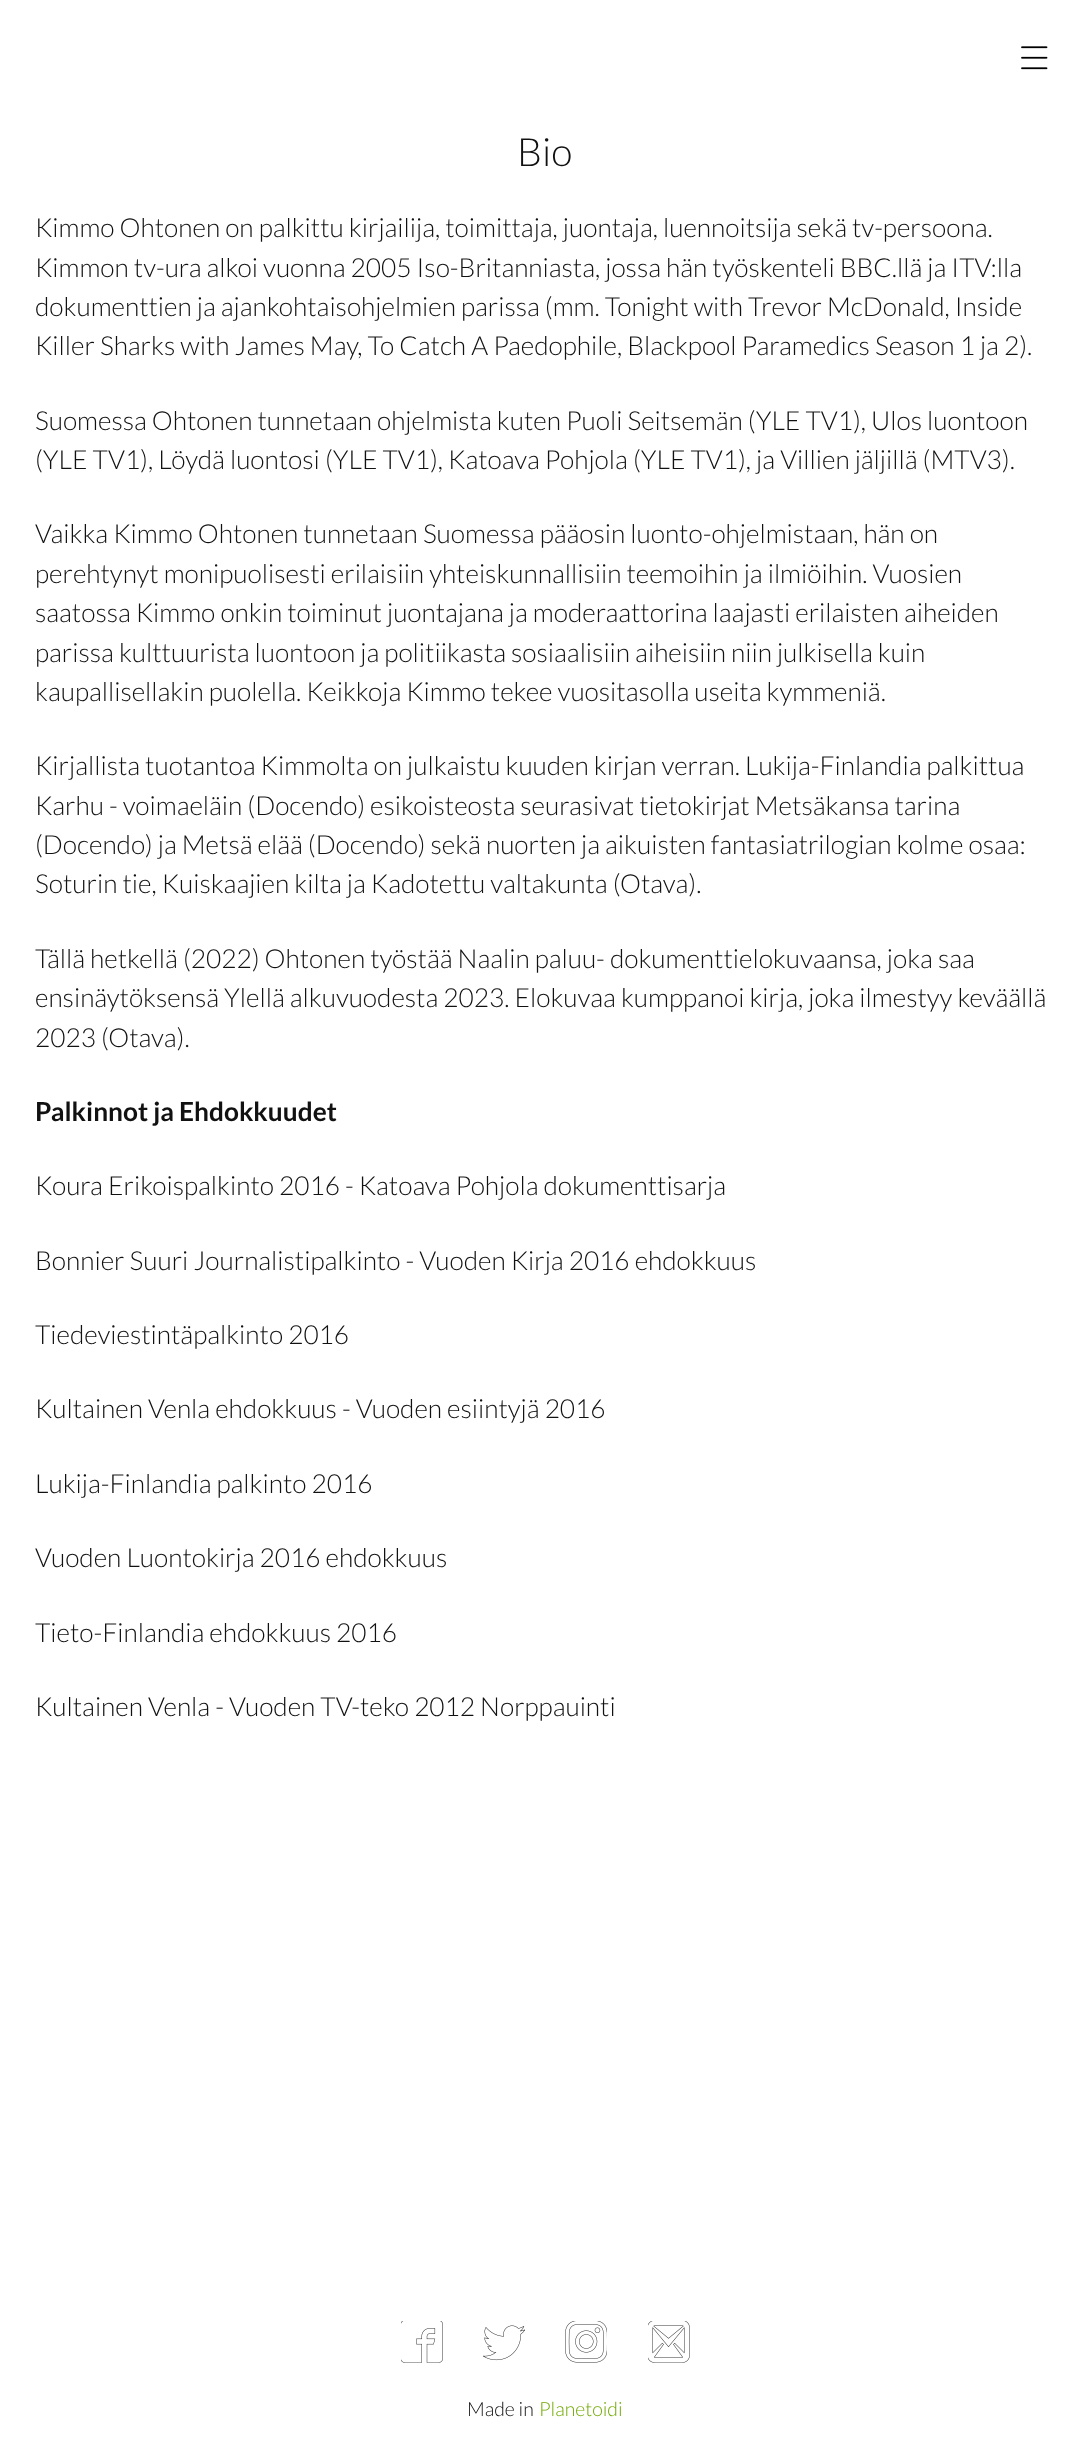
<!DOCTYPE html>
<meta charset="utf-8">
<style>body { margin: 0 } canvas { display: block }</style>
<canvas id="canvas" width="1089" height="2460"></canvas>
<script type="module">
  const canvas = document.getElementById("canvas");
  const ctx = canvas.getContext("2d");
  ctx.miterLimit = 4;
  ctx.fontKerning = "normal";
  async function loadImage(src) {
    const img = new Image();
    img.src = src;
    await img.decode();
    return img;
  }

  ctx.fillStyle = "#ffffff";
  ctx.fillRect(0, 0, 1089, 2460);
  ctx.drawImage(await loadImage("img1.png"), 1021, 46, 27, 24);
  ctx.font = "300 39px Lato";
  ctx.fillStyle = "#111111";
  ctx.fillText("Bio", 517, 166);
  ctx.font = "300 26.25px Lato";
  ctx.fillText("Kimmo Ohtonen on palkittu kirjailija, toimittaja, juontaja, luennoitsija sekä tv-persoona.", 35, 237);
  ctx.fillText("Kimmon tv-ura alkoi vuonna 2005 Iso-Britanniasta, jossa hän työskenteli BBC.llä ja ITV:lla", 35, 277);
  ctx.fillText("dokumenttien ja ajankohtaisohjelmien parissa (mm. Tonight with Trevor McDonald, Inside", 35, 316);
  ctx.fillText("Killer Sharks with James May, To Catch A Paedophile, Blackpool Paramedics Season 1 ja 2).", 35, 355);
  ctx.fillText("Suomessa Ohtonen tunnetaan ohjelmista kuten Puoli Seitsemän (YLE TV1), Ulos luontoon", 35, 430);
  ctx.fillText("(YLE TV1), Löydä luontosi (YLE TV1), Katoava Pohjola (YLE TV1), ja Villien jäljillä (MTV3).", 35, 469);
  ctx.fillText("Vaikka Kimmo Ohtonen tunnetaan Suomessa pääosin luonto-ohjelmistaan, hän on", 35, 543);
  ctx.fillText("perehtynyt monipuolisesti erilaisiin yhteiskunnallisiin teemoihin ja ilmiöihin. Vuosien", 35, 583);
  ctx.fillText("saatossa Kimmo onkin toiminut juontajana ja moderaattorina laajasti erilaisten aiheiden", 35, 622);
  ctx.fillText("parissa kulttuurista luontoon ja politiikasta sosiaalisiin aiheisiin niin julkisella kuin", 35, 662);
  ctx.fillText("kaupallisellakin puolella. Keikkoja Kimmo tekee vuositasolla useita kymmeniä.", 35, 701);
  ctx.fillText("Kirjallista tuotantoa Kimmolta on julkaistu kuuden kirjan verran. Lukija-Finlandia palkittua", 35, 775);
  ctx.fillText("Karhu - voimaeläin (Docendo) esikoisteosta seurasivat tietokirjat Metsäkansa tarina", 35, 815);
  ctx.fillText("(Docendo) ja Metsä elää (Docendo) sekä nuorten ja aikuisten fantasiatrilogian kolme osaa:", 35, 854);
  ctx.fillText("Soturin tie, Kuiskaajien kilta ja Kadotettu valtakunta (Otava).", 35, 893);
  ctx.fillText("Tällä hetkellä (2022) Ohtonen työstää Naalin paluu- dokumenttielokuvaansa, joka saa", 35, 968);
  ctx.fillText("ensinäytöksensä Ylellä alkuvuodesta 2023. Elokuvaa kumppanoi kirja, joka ilmestyy keväällä", 35, 1007);
  ctx.fillText("2023 (Otava).", 35, 1047);
  ctx.font = "bold 26.25px Lato";
  ctx.fillText("Palkinnot ja Ehdokkuudet", 35, 1121);
  ctx.font = "300 26.25px Lato";
  ctx.fillText("Koura Erikoispalkinto 2016 - Katoava Pohjola dokumenttisarja", 35, 1195);
  ctx.fillText("Bonnier Suuri Journalistipalkinto - Vuoden Kirja 2016 ehdokkuus", 35, 1270);
  ctx.fillText("Tiedeviestintäpalkinto 2016", 35, 1344);
  ctx.fillText("Kultainen Venla ehdokkuus - Vuoden esiintyjä 2016", 35, 1418);
  ctx.fillText("Lukija-Finlandia palkinto 2016", 35, 1493);
  ctx.fillText("Vuoden Luontokirja 2016 ehdokkuus", 35, 1567);
  ctx.fillText("Tieto-Finlandia ehdokkuus 2016", 35, 1642);
  ctx.fillText("Kultainen Venla - Vuoden TV-teko 2012 Norppauinti", 35, 1716);
  ctx.drawImage(await loadImage("img2.png"), 401, 2321, 42, 42);
  ctx.drawImage(await loadImage("img3.png"), 483, 2325, 42, 36);
  ctx.drawImage(await loadImage("img4.png"), 565, 2321, 42, 42);
  ctx.drawImage(await loadImage("img5.png"), 648, 2321, 42, 42);
  ctx.font = "300 19.5px Lato";
  ctx.fillText("Made in", 467, 2416);
  ctx.fillStyle = "#70a900";
  ctx.fillText("Planetoidi", 539, 2416);
</script>
